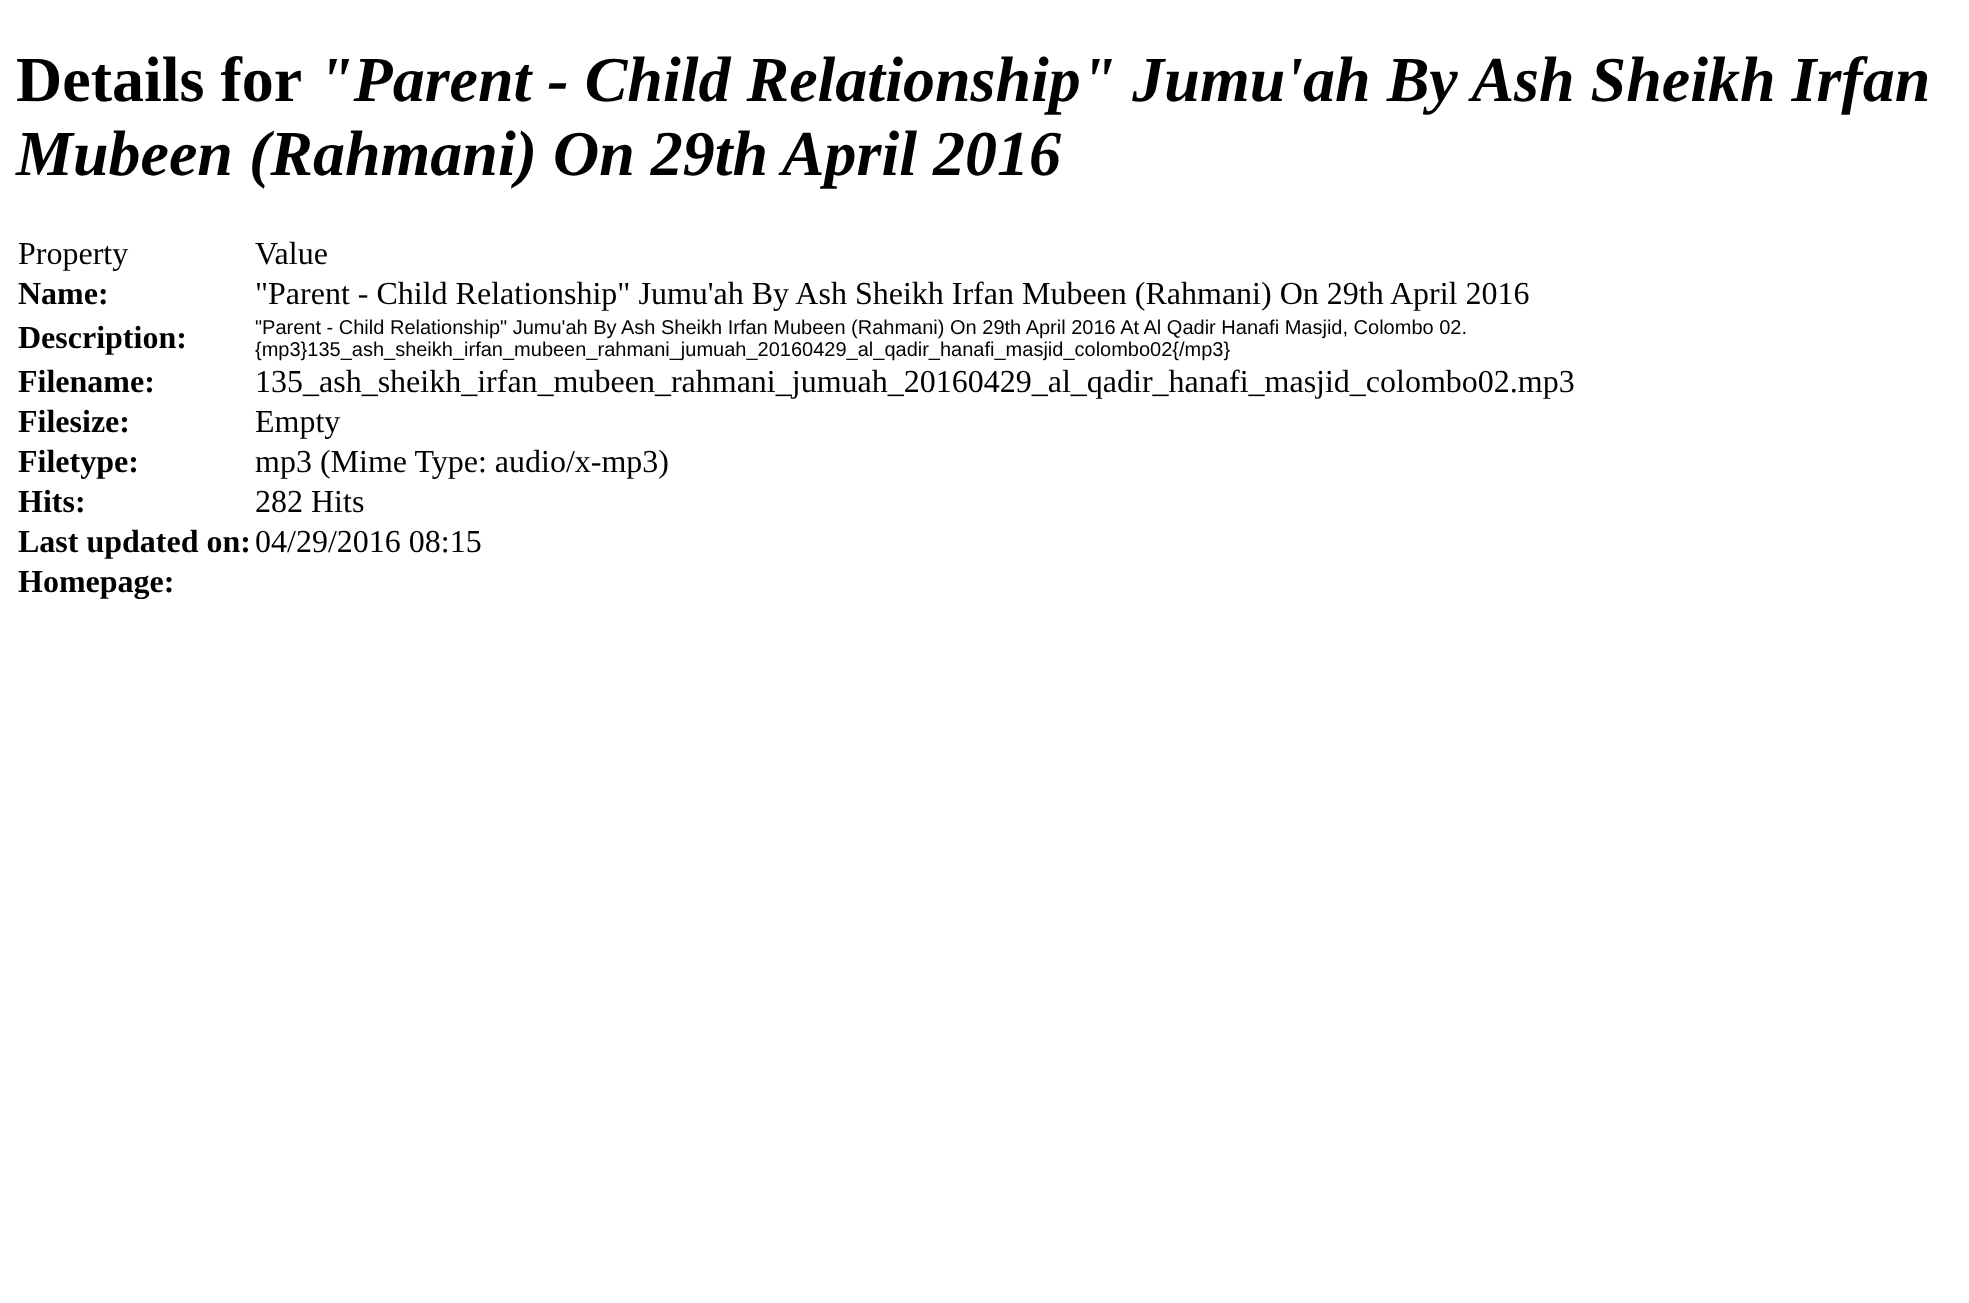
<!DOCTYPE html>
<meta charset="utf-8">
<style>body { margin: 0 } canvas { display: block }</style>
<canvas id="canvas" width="1969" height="1303"></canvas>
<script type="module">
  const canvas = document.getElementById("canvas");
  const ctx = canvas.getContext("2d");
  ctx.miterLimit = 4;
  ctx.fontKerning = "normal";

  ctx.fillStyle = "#ffffff";
  ctx.fillRect(0, 0, 1969, 1303);
  ctx.font = "bold 64px Liberation Serif";
  ctx.fillStyle = "#000000";
  ctx.fillText("Details for", 16, 101);
  ctx.font = "italic bold 64px Liberation Serif";
  ctx.fillText("\"Parent - Child Relationship\" Jumu'ah By Ash Sheikh Irfan", 318, 101);
  ctx.fillText("Mubeen (Rahmani) On 29th April 2016", 16, 175);
  ctx.font = "32px Liberation Serif";
  ctx.fillText("Property", 18, 264);
  ctx.fillText("Value", 255, 264);
  ctx.font = "bold 32px Liberation Serif";
  ctx.fillText("Name:", 18, 304);
  ctx.font = "32px Liberation Serif";
  ctx.fillText("\"Parent - Child Relationship\" Jumu'ah By Ash Sheikh Irfan Mubeen (Rahmani) On 29th April 2016", 255, 304);
  ctx.font = "bold 32px Liberation Serif";
  ctx.fillText("Description:", 18, 348);
  ctx.font = "20px Liberation Sans";
  ctx.fillText("\"Parent - Child Relationship\" Jumu'ah By Ash Sheikh Irfan Mubeen (Rahmani) On 29th April 2016 At Al Qadir Hanafi Masjid, Colombo 02.", 255, 334);
  ctx.fillText("{mp3}135_ash_sheikh_irfan_mubeen_rahmani_jumuah_20160429_al_qadir_hanafi_masjid_colombo02{/mp3}", 255, 356);
  ctx.font = "bold 32px Liberation Serif";
  ctx.fillText("Filename:", 18, 392);
  ctx.font = "32px Liberation Serif";
  ctx.fillText("135_ash_sheikh_irfan_mubeen_rahmani_jumuah_20160429_al_qadir_hanafi_masjid_colombo02.mp3", 255, 392);
  ctx.font = "bold 32px Liberation Serif";
  ctx.fillText("Filesize:", 18, 432);
  ctx.font = "32px Liberation Serif";
  ctx.fillText("Empty", 255, 432);
  ctx.font = "bold 32px Liberation Serif";
  ctx.fillText("Filetype:", 18, 472);
  ctx.font = "32px Liberation Serif";
  ctx.fillText("mp3 (Mime Type: audio/x-mp3)", 255, 472);
  ctx.font = "bold 32px Liberation Serif";
  ctx.fillText("Hits:", 18, 512);
  ctx.font = "32px Liberation Serif";
  ctx.fillText("282 Hits", 255, 512);
  ctx.font = "bold 32px Liberation Serif";
  ctx.fillText("Last updated on:", 18, 552);
  ctx.font = "32px Liberation Serif";
  ctx.fillText("04/29/2016 08:15", 255, 552);
  ctx.font = "bold 32px Liberation Serif";
  ctx.fillText("Homepage:", 18, 592);
</script>
